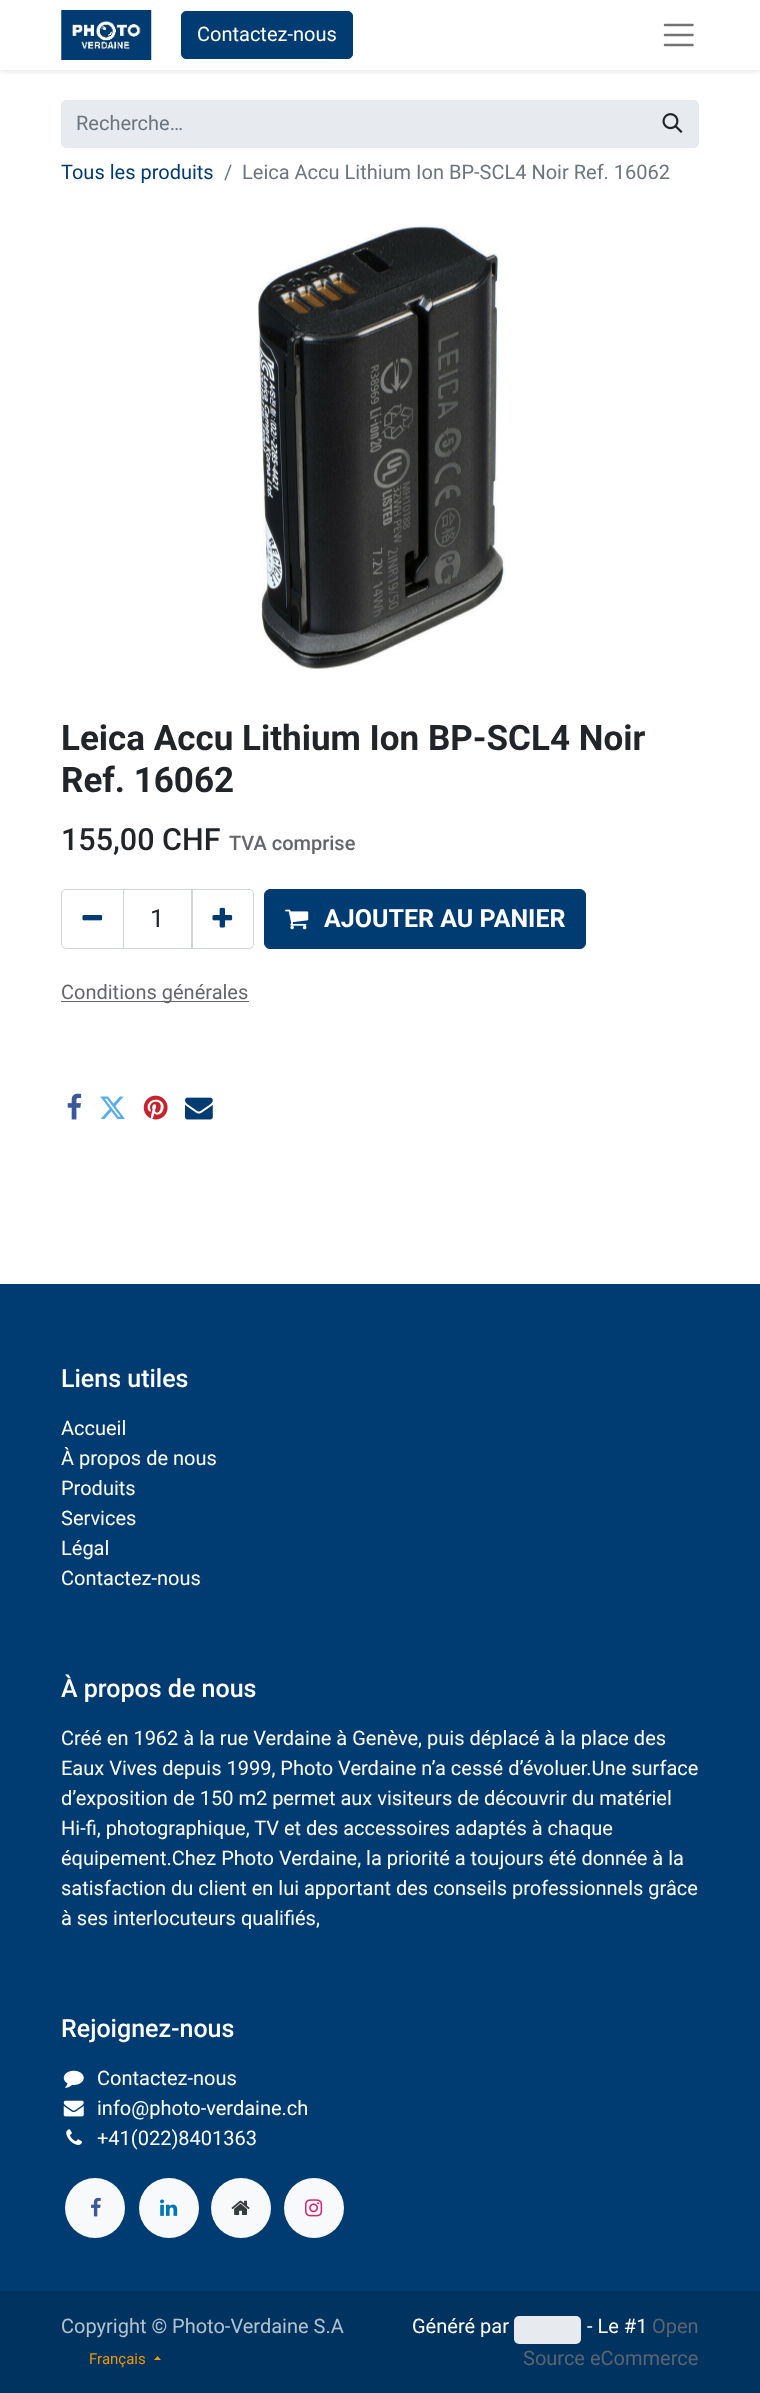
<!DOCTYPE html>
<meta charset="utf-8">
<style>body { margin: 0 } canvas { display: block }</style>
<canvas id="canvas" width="760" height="2393"></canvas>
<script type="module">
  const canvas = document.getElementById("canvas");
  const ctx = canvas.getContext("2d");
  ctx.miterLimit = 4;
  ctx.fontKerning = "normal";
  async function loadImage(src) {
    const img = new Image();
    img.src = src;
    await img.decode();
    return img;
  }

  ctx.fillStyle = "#ffffff";
  ctx.fillRect(0, 0, 760, 2393);
  ctx.save();
  ctx.beginPath();
  ctx.rect(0, 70, 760, 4);
  ctx.clip();
  ctx.fillStyle = "rgba(0, 0, 0, 0.07)";
  ctx.filter = "blur(2.5px)";
  ctx.beginPath();
  ctx.rect(0, 3, 760, 70);
  ctx.fill();
  ctx.filter = "none";
  ctx.restore();
  ctx.drawImage(await loadImage("img1.png"), 61, 10, 91, 50);
  ctx.fillStyle = "#003c71";
  ctx.beginPath();
  ctx.roundRect(181.5, 11.5, 171, 47, 4.5);
  ctx.fill();
  ctx.strokeStyle = "#003c71";
  ctx.stroke();
  ctx.font = "20px Roboto";
  ctx.fillStyle = "#ffffff";
  ctx.fillText("Contactez-nous", 197, 41);
  ctx.beginPath();
  ctx.moveTo(665, 25);
  ctx.lineTo(692.5, 25);
  ctx.moveTo(665, 35);
  ctx.lineTo(692.5, 35);
  ctx.moveTo(665, 45);
  ctx.lineTo(692.5, 45);
  ctx.strokeStyle = "#737373";
  ctx.lineWidth = 2.5;
  ctx.lineCap = "round";
  ctx.stroke();
  ctx.fillStyle = "#e7ebef";
  ctx.beginPath();
  ctx.roundRect(61, 100, 587, 48, [5, 0, 0, 5]);
  ctx.fill();
  ctx.fillStyle = "#6c757d";
  ctx.fillText("Recherche…", 76, 130);
  ctx.fillStyle = "#e7ebef";
  ctx.beginPath();
  ctx.roundRect(646.5, 100.5, 52, 47, [0, 4.5, 4.5, 0]);
  ctx.fill();
  ctx.strokeStyle = "#e7ebef";
  ctx.lineWidth = 1;
  ctx.stroke();
  ctx.drawImage(await loadImage("img2.png"), 662, 113, 21, 20);
  ctx.fillStyle = "#003c71";
  ctx.fillText("Tous les produits", 61, 179);
  ctx.fillStyle = "#6c757d";
  ctx.fillText("/", 224, 179);
  ctx.fillText("Leica Accu Lithium Ion BP-SCL4 Noir Ref. 16062", 242, 179);
  ctx.drawImage(await loadImage("img3.png"), 258, 225, 248, 445);
  ctx.font = "bold 35px Roboto";
  ctx.fillStyle = "#212529";
  ctx.fillText("Leica Accu Lithium Ion BP-SCL4 Noir", 61, 750);
  ctx.fillText("Ref. 16062", 61, 792);
  ctx.font = "500 30.5px Roboto";
  ctx.fillText("155,00 CHF", 61, 850);
  ctx.font = "500 20px Roboto";
  ctx.fillStyle = "#646669";
  ctx.fillText("TVA comprise", 229, 850);
  ctx.strokeStyle = "#ced4da";
  ctx.strokeRect(123.5, 889.5, 69, 59);
  ctx.beginPath();
  ctx.roundRect(61.5, 889.5, 62, 59, [4.5, 0, 0, 4.5]);
  ctx.stroke();
  ctx.drawImage(await loadImage("img4.png"), 82, 915, 21, 6);
  ctx.font = "25px Roboto";
  ctx.fillStyle = "#212529";
  ctx.fillText("1", 150, 927);
  ctx.beginPath();
  ctx.roundRect(191.5, 889.5, 62, 59, [0, 4.5, 4.5, 0]);
  ctx.stroke();
  ctx.drawImage(await loadImage("img5.png"), 212, 907, 21, 21);
  ctx.fillStyle = "#003c71";
  ctx.beginPath();
  ctx.roundRect(264.5, 889.5, 321, 59, 5.5);
  ctx.fill();
  ctx.strokeStyle = "#003c71";
  ctx.stroke();
  ctx.drawImage(await loadImage("img6.png"), 285, 909, 24, 21);
  ctx.font = "bold 25px Roboto";
  ctx.fillStyle = "#ffffff";
  ctx.fillText("AJOUTER AU PANIER", 324, 927);
  ctx.fillStyle = "#646669";
  ctx.fillRect(61, 1001, 188, 1);
  ctx.font = "20px Roboto";
  ctx.fillText("Conditions générales", 61, 999);
  ctx.drawImage(await loadImage("img7.png"), 67, 1093, 15, 27);
  ctx.drawImage(await loadImage("img8.png"), 100, 1096, 25, 23);
  ctx.drawImage(await loadImage("img9.png"), 143, 1095, 25, 25);
  ctx.drawImage(await loadImage("img10.png"), 185, 1097, 28, 23);
  ctx.fillStyle = "#003c71";
  ctx.fillRect(0, 1284, 760, 1007);
  ctx.font = "500 25px Roboto";
  ctx.fillStyle = "#ffffff";
  ctx.fillText("Liens utiles", 61, 1387);
  ctx.font = "20px Roboto";
  ctx.fillText("Accueil", 61, 1435);
  ctx.fillText("À propos de nous", 61, 1465);
  ctx.fillText("Produits", 61, 1495);
  ctx.fillText("Services", 61, 1525);
  ctx.fillText("Légal", 61, 1555);
  ctx.fillText("Contactez-nous", 61, 1585);
  ctx.font = "500 25px Roboto";
  ctx.fillText("À propos de nous", 61, 1697);
  ctx.font = "20px Roboto";
  ctx.fillText("Créé en 1962 à la rue Verdaine à Genève, puis déplacé à la place des", 61, 1745);
  ctx.fillText("Eaux Vives depuis 1999, Photo Verdaine n’a cessé d’évoluer.Une surface", 61, 1775);
  ctx.fillText("d’exposition de 150 m2 permet aux visiteurs de découvrir du matériel", 61, 1805);
  ctx.fillText("Hi-fi, photographique, TV et des accessoires adaptés à chaque", 61, 1835);
  ctx.fillText("équipement.Chez Photo Verdaine, la priorité a toujours été donnée à la", 61, 1865);
  ctx.fillText("satisfaction du client en lui apportant des conseils professionnels grâce", 61, 1895);
  ctx.fillText("à ses interlocuteurs qualifiés,", 61, 1925);
  ctx.font = "500 25px Roboto";
  ctx.fillText("Rejoignez-nous", 61, 2037);
  ctx.drawImage(await loadImage("img11.png"), 63, 2070, 21, 18);
  ctx.font = "20px Roboto";
  ctx.fillText("Contactez-nous", 97, 2085);
  ctx.drawImage(await loadImage("img12.png"), 63, 2100, 21, 17);
  ctx.fillText("info@photo-verdaine.ch", 97, 2115);
  ctx.drawImage(await loadImage("img13.png"), 66, 2129, 16, 16);
  ctx.fillText("+41(022)8401363", 97, 2145);
  ctx.fillStyle = "#f8f9fa";
  ctx.beginPath();
  ctx.arc(95, 2208, 30, 0, Math.PI * 2);
  ctx.fill();
  ctx.drawImage(await loadImage("img14.png"), 91, 2197, 10, 20);
  ctx.beginPath();
  ctx.arc(169, 2208, 30, 0, Math.PI * 2);
  ctx.fill();
  ctx.drawImage(await loadImage("img15.png"), 160, 2199, 18, 17);
  ctx.beginPath();
  ctx.arc(241, 2208, 30, 0, Math.PI * 2);
  ctx.fill();
  ctx.drawImage(await loadImage("img16.png"), 231, 2200, 19, 15);
  ctx.beginPath();
  ctx.arc(314, 2208, 30, 0, Math.PI * 2);
  ctx.fill();
  ctx.drawImage(await loadImage("img17.png"), 305, 2199, 18, 18);
  ctx.fillStyle = "#003360";
  ctx.fillRect(0, 2291, 760, 102);
  ctx.fillStyle = "#b3c2cf";
  ctx.fillText("Copyright © Photo-Verdaine S.A", 61, 2333);
  ctx.font = "15px Roboto";
  ctx.fillStyle = "#ed9907";
  ctx.fillText("Français", 89, 2364);
  ctx.beginPath();
  ctx.moveTo(161, 2360);
  ctx.lineTo(154, 2360);
  ctx.lineTo(157.5, 2356);
  ctx.closePath();
  ctx.fill();
  ctx.font = "20px Roboto";
  ctx.fillStyle = "#ffffff";
  ctx.fillText("Généré par", 412, 2333);
  ctx.fillStyle = "#e7ebef";
  ctx.beginPath();
  ctx.roundRect(514, 2316, 67, 28, 5);
  ctx.fill();
  ctx.fillStyle = "#ffffff";
  ctx.fillText("- Le #1", 587, 2333);
  ctx.fillStyle = "#5a646f";
  ctx.fillText("Open", 652, 2333);
  ctx.fillText("Source eCommerce", 523, 2365);
</script>
